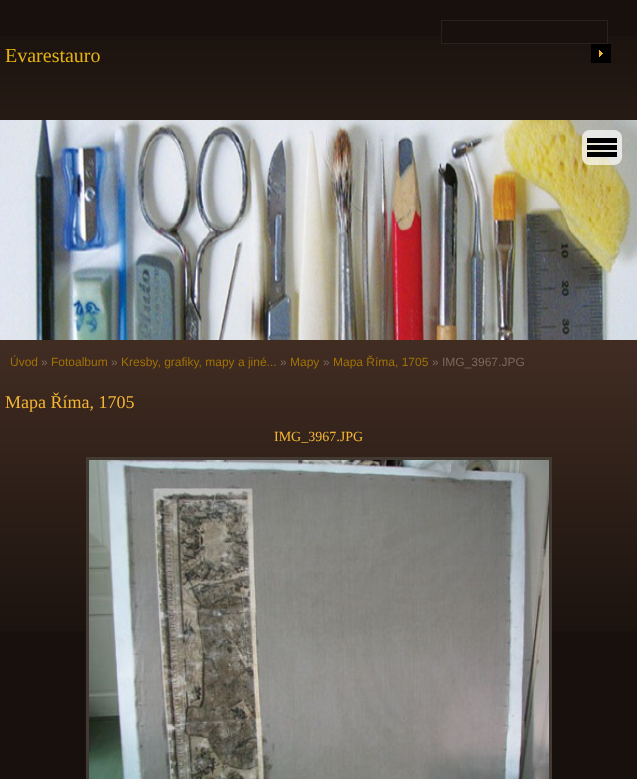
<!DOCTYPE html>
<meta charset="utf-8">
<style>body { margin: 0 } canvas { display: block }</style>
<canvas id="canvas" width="637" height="779"></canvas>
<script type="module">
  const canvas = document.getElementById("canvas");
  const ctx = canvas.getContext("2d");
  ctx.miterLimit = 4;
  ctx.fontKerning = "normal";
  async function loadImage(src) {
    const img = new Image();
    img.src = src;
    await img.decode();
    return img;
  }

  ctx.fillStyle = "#17100c";
  ctx.fillRect(0, 0, 637, 779);
  ctx.drawImage(await loadImage("img1.png"), 0, 36, 637, 595);
  ctx.drawImage(await loadImage("img2.png"), 0, 120, 637, 220);
  ctx.font = "20px Liberation Serif";
  ctx.fillStyle = "#e4b311";
  ctx.fillText("Evarestauro", 5, 62);
  ctx.fillStyle = "#18100d";
  ctx.fillRect(442, 36, 165, 7);
  ctx.strokeStyle = "#2c201a";
  ctx.strokeRect(441.5, 20.5, 166, 23);
  ctx.fillStyle = "#000000";
  ctx.fillRect(591, 44, 20, 19);
  ctx.drawImage(await loadImage("img3.png"), 599, 50, 4, 7);
  ctx.font = "12px Liberation Sans";
  ctx.fillStyle = "#a07207";
  ctx.fillText("Úvod", 10, 366);
  ctx.fillStyle = "#7f675c";
  ctx.fillText("»", 41, 366);
  ctx.fillStyle = "#a07207";
  ctx.fillText("Fotoalbum", 51, 366);
  ctx.fillStyle = "#7f675c";
  ctx.fillText("»", 111, 366);
  ctx.fillStyle = "#a07207";
  ctx.fillText("Kresby, grafiky, mapy a jiné...", 121, 366);
  ctx.fillStyle = "#7f675c";
  ctx.fillText("»", 280, 366);
  ctx.fillStyle = "#a07207";
  ctx.fillText("Mapy", 290, 366);
  ctx.fillStyle = "#7f675c";
  ctx.fillText("»", 323, 366);
  ctx.fillStyle = "#a07207";
  ctx.fillText("Mapa Říma, 1705", 333, 366);
  ctx.fillStyle = "#7f675c";
  ctx.fillText("» IMG_3967.JPG", 432, 366);
  ctx.font = "18px Liberation Serif";
  ctx.fillStyle = "#f3b533";
  ctx.fillText("Mapa Říma, 1705", 5, 408);
  ctx.font = "14px Liberation Serif";
  ctx.fillText("IMG_3967.JPG", 274, 441);
  ctx.strokeStyle = "#433a33";
  ctx.lineWidth = 3;
  ctx.strokeRect(87.5, 458.5, 463, 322);
  ctx.drawImage(await loadImage("img4.png"), 89, 460, 460, 319);
  ctx.fillStyle = "rgba(255, 255, 255, 0.7)";
  ctx.beginPath();
  ctx.roundRect(582, 130, 40, 35, 8);
  ctx.fill();
  ctx.fillStyle = "#000000";
  ctx.fillRect(587, 138, 30, 5);
  ctx.fillRect(587, 145, 30, 5);
  ctx.fillRect(587, 152, 30, 5);
</script>
